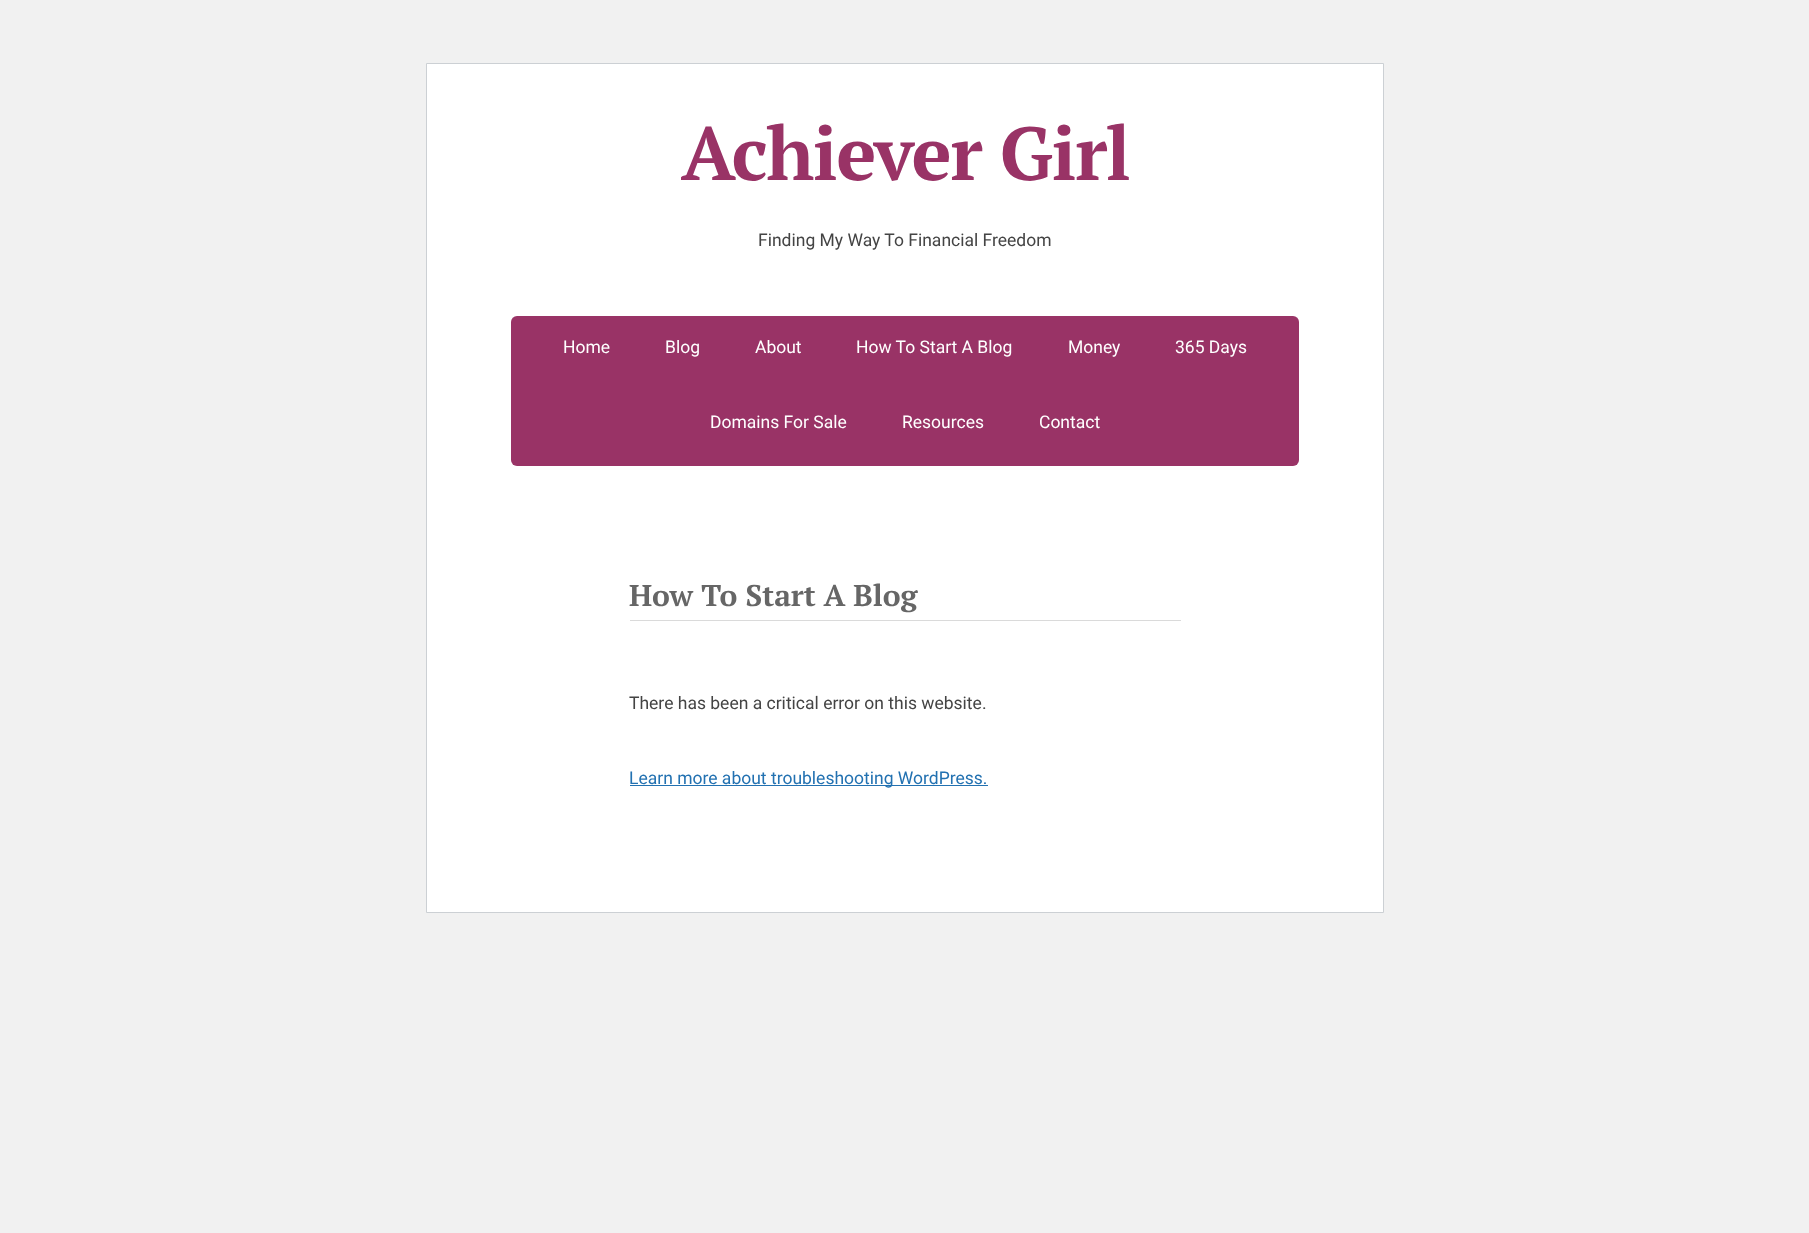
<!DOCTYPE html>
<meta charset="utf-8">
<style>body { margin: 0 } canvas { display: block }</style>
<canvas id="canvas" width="1809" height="1233"></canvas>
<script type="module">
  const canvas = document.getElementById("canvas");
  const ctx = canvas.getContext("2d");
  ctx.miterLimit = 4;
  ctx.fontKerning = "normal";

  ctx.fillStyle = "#f1f1f1";
  ctx.fillRect(0, 0, 1809, 1233);
  ctx.fillStyle = "#ffffff";
  ctx.beginPath();
  ctx.rect(426.5, 63.5, 957, 849);
  ctx.fill();
  ctx.strokeStyle = "#ccd0d4";
  ctx.stroke();
  ctx.letterSpacing = "-1.5px";
  ctx.font = "bold 75px PT Serif";
  ctx.fillStyle = "#993366";
  ctx.fillText("Achiever Girl", 681, 180);
  ctx.letterSpacing = "0px";
  ctx.font = "17.5px Roboto";
  ctx.fillStyle = "#444444";
  ctx.fillText("Finding My Way To Financial Freedom", 758, 246);
  ctx.fillStyle = "#993366";
  ctx.beginPath();
  ctx.roundRect(511, 316, 788, 150, 6);
  ctx.fill();
  ctx.fillStyle = "#ffffff";
  ctx.fillText("Home", 563, 353);
  ctx.fillText("Blog", 665, 353);
  ctx.fillText("About", 755, 353);
  ctx.fillText("How To Start A Blog", 856, 353);
  ctx.fillText("Money", 1068, 353);
  ctx.fillText("365 Days", 1175, 353);
  ctx.fillText("Domains For Sale", 710, 428);
  ctx.fillText("Resources", 902, 428);
  ctx.fillText("Contact", 1039, 428);
  ctx.fillStyle = "#dadada";
  ctx.fillRect(630, 620, 551, 1);
  ctx.font = "bold 30px PT Serif";
  ctx.fillStyle = "#666666";
  ctx.fillText("How To Start A Blog", 629, 606);
  ctx.font = "17.5px Roboto";
  ctx.fillStyle = "#444444";
  ctx.fillText("There has been a critical error on this website.", 629, 709);
  ctx.fillStyle = "#2271b1";
  ctx.fillRect(630, 785, 358, 1);
  ctx.fillText("Learn more about troubleshooting WordPress.", 629, 784);
</script>
